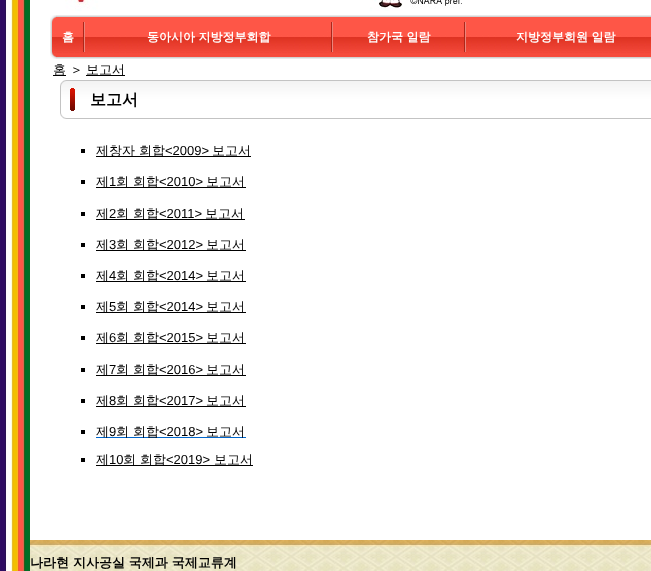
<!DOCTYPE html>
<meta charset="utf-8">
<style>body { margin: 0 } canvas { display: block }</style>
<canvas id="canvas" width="651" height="571"></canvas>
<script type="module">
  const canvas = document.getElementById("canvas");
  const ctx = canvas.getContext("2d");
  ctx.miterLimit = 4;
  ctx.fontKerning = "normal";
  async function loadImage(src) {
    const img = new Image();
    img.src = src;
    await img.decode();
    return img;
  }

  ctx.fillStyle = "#ffffff";
  ctx.fillRect(0, 0, 651, 571);
  ctx.drawImage(await loadImage("img1.png"), 0, 0, 30, 571);
  ctx.drawImage(await loadImage("img2.png"), 65, 0, 397, 11);
  ctx.drawImage(await loadImage("img3.png"), 50, 15, 6, 44);
  ctx.drawImage(await loadImage("img4.png"), 56, 15, 23, 44);
  ctx.font = "bold 12px WenQuanYi Zen Hei";
  ctx.fillText("홈", 62, 41);
  ctx.drawImage(await loadImage("img5.png"), 79, 15, 10, 44);
  ctx.drawImage(await loadImage("img6.png"), 89, 15, 238, 44);
  ctx.fillText("동아시아 지방정부회합", 147, 41);
  ctx.drawImage(await loadImage("img5.png"), 327, 15, 10, 44);
  ctx.drawImage(await loadImage("img7.png"), 337, 15, 123, 44);
  ctx.fillText("참가국 일람", 367, 41);
  ctx.drawImage(await loadImage("img5.png"), 460, 15, 10, 44);
  ctx.drawImage(await loadImage("img8.png"), 470, 15, 181, 44);
  ctx.fillText("지방정부회원 일람", 516, 41);
  ctx.fillStyle = "#000000";
  ctx.fillRect(53, 75, 13, 1);
  ctx.font = "500 13px WenQuanYi Zen Hei";
  ctx.fillText("홈 ＞", 53, 74);
  ctx.fillRect(86, 75, 39, 1);
  ctx.fillText("보고서", 86, 74);
  ctx.drawImage(await loadImage("img9.png"), 60, 80, 591, 39);
  ctx.font = "bold 16px WenQuanYi Zen Hei";
  ctx.fillText("보고서", 90, 105);
  ctx.fillRect(81, 149, 4, 4);
  ctx.fillRect(96, 156, 155, 1);
  ctx.font = "500 13px WenQuanYi Zen Hei";
  ctx.fillText("제창자 회합", 96, 155);
  ctx.font = "13px Liberation Sans";
  ctx.fillText("<2009>", 165, 155);
  ctx.font = "500 13px WenQuanYi Zen Hei";
  ctx.fillText("보고서", 212, 155);
  ctx.fillRect(81, 180, 4, 4);
  ctx.fillRect(96, 187, 150, 1);
  ctx.fillText("제", 96, 186);
  ctx.font = "13px Liberation Sans";
  ctx.fillText("1", 109, 186);
  ctx.font = "500 13px WenQuanYi Zen Hei";
  ctx.fillText("회 회합", 116, 186);
  ctx.font = "13px Liberation Sans";
  ctx.fillText("<2010>", 159, 186);
  ctx.font = "500 13px WenQuanYi Zen Hei";
  ctx.fillText("보고서", 206, 186);
  ctx.fillRect(81, 212, 4, 4);
  ctx.fillRect(96, 219, 149, 1);
  ctx.fillText("제", 96, 218);
  ctx.font = "13px Liberation Sans";
  ctx.fillText("2", 109, 218);
  ctx.font = "500 13px WenQuanYi Zen Hei";
  ctx.fillText("회 회합", 116, 218);
  ctx.font = "13px Liberation Sans";
  ctx.fillText("<2011>", 159, 218);
  ctx.font = "500 13px WenQuanYi Zen Hei";
  ctx.fillText("보고서", 205, 218);
  ctx.fillRect(81, 243, 4, 4);
  ctx.fillRect(96, 250, 150, 1);
  ctx.fillText("제", 96, 249);
  ctx.font = "13px Liberation Sans";
  ctx.fillText("3", 109, 249);
  ctx.font = "500 13px WenQuanYi Zen Hei";
  ctx.fillText("회 회합", 116, 249);
  ctx.font = "13px Liberation Sans";
  ctx.fillText("<2012>", 159, 249);
  ctx.font = "500 13px WenQuanYi Zen Hei";
  ctx.fillText("보고서", 206, 249);
  ctx.fillRect(81, 274, 4, 4);
  ctx.fillRect(96, 281, 150, 1);
  ctx.fillText("제", 96, 280);
  ctx.font = "13px Liberation Sans";
  ctx.fillText("4", 109, 280);
  ctx.font = "500 13px WenQuanYi Zen Hei";
  ctx.fillText("회 회합", 116, 280);
  ctx.font = "13px Liberation Sans";
  ctx.fillText("<2014>", 159, 280);
  ctx.font = "500 13px WenQuanYi Zen Hei";
  ctx.fillText("보고서", 206, 280);
  ctx.fillRect(81, 305, 4, 4);
  ctx.fillRect(96, 312, 150, 1);
  ctx.fillText("제", 96, 311);
  ctx.font = "13px Liberation Sans";
  ctx.fillText("5", 109, 311);
  ctx.font = "500 13px WenQuanYi Zen Hei";
  ctx.fillText("회 회합", 116, 311);
  ctx.font = "13px Liberation Sans";
  ctx.fillText("<2014>", 159, 311);
  ctx.font = "500 13px WenQuanYi Zen Hei";
  ctx.fillText("보고서", 206, 311);
  ctx.fillRect(81, 336, 4, 4);
  ctx.fillRect(96, 343, 150, 1);
  ctx.fillText("제", 96, 342);
  ctx.font = "13px Liberation Sans";
  ctx.fillText("6", 109, 342);
  ctx.font = "500 13px WenQuanYi Zen Hei";
  ctx.fillText("회 회합", 116, 342);
  ctx.font = "13px Liberation Sans";
  ctx.fillText("<2015>", 159, 342);
  ctx.font = "500 13px WenQuanYi Zen Hei";
  ctx.fillText("보고서", 206, 342);
  ctx.fillRect(81, 368, 4, 4);
  ctx.fillRect(96, 375, 150, 1);
  ctx.fillText("제", 96, 374);
  ctx.font = "13px Liberation Sans";
  ctx.fillText("7", 109, 374);
  ctx.font = "500 13px WenQuanYi Zen Hei";
  ctx.fillText("회 회합", 116, 374);
  ctx.font = "13px Liberation Sans";
  ctx.fillText("<2016>", 159, 374);
  ctx.font = "500 13px WenQuanYi Zen Hei";
  ctx.fillText("보고서", 206, 374);
  ctx.fillRect(81, 399, 4, 4);
  ctx.fillRect(96, 406, 150, 1);
  ctx.fillText("제", 96, 405);
  ctx.font = "13px Liberation Sans";
  ctx.fillText("8", 109, 405);
  ctx.font = "500 13px WenQuanYi Zen Hei";
  ctx.fillText("회 회합", 116, 405);
  ctx.font = "13px Liberation Sans";
  ctx.fillText("<2017>", 159, 405);
  ctx.font = "500 13px WenQuanYi Zen Hei";
  ctx.fillText("보고서", 206, 405);
  ctx.fillRect(81, 430, 4, 4);
  ctx.fillStyle = "#0066cc";
  ctx.fillRect(96, 437, 150, 1);
  ctx.fillStyle = "#000000";
  ctx.fillText("제", 96, 436);
  ctx.font = "13px Liberation Sans";
  ctx.fillText("9", 109, 436);
  ctx.font = "500 13px WenQuanYi Zen Hei";
  ctx.fillText("회 회합", 116, 436);
  ctx.font = "13px Liberation Sans";
  ctx.fillText("<2018>", 159, 436);
  ctx.font = "500 13px WenQuanYi Zen Hei";
  ctx.fillText("보고서", 206, 436);
  ctx.fillRect(81, 458, 4, 4);
  ctx.fillRect(96, 465, 157, 1);
  ctx.fillText("제", 96, 464);
  ctx.font = "13px Liberation Sans";
  ctx.fillText("10", 109, 464);
  ctx.font = "500 13px WenQuanYi Zen Hei";
  ctx.fillText("회 회합", 123, 464);
  ctx.font = "13px Liberation Sans";
  ctx.fillText("<2019>", 166, 464);
  ctx.font = "500 13px WenQuanYi Zen Hei";
  ctx.fillText("보고서", 214, 464);
  ctx.drawImage(await loadImage("img10.png"), 30, 540, 621, 31);
  ctx.font = "bold 13px WenQuanYi Zen Hei";
  ctx.fillText("나라현 지사공실 국제과 국제교류계", 30, 567);
</script>
